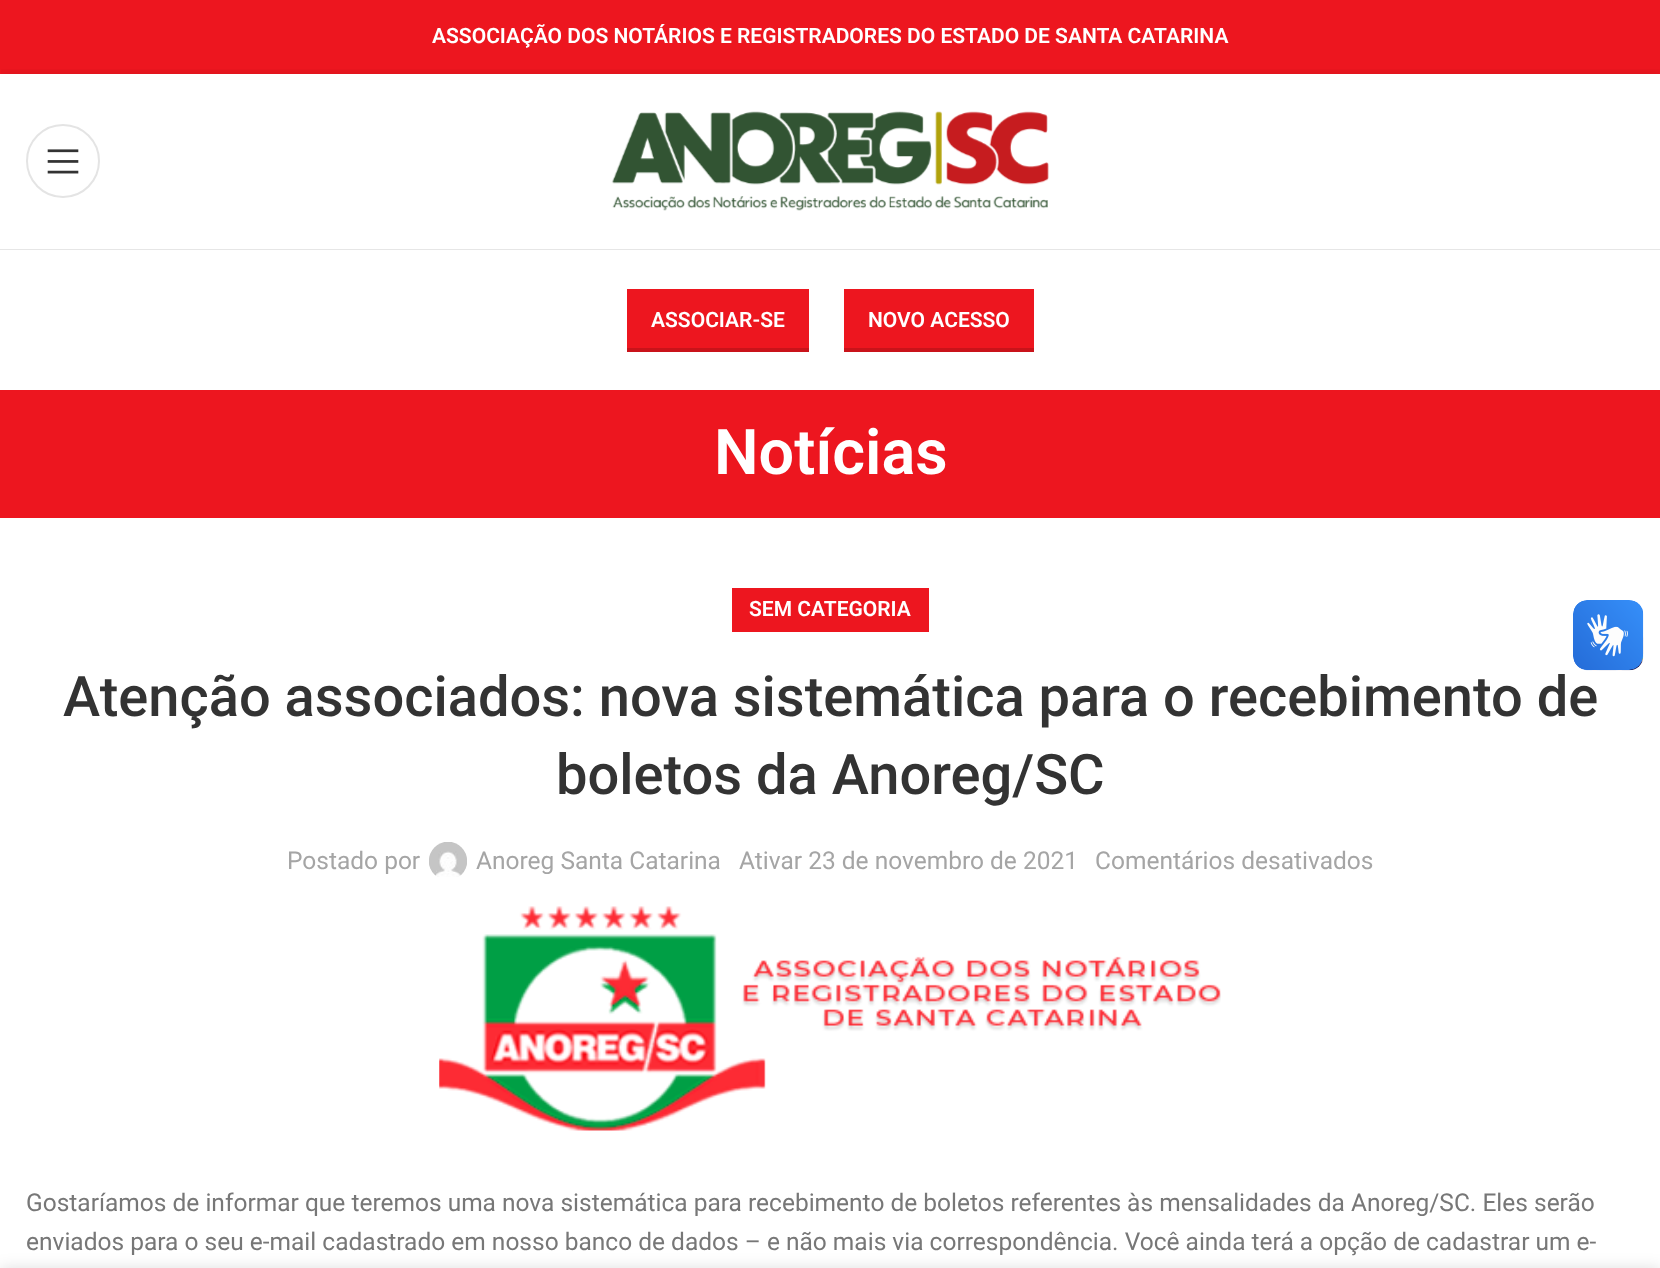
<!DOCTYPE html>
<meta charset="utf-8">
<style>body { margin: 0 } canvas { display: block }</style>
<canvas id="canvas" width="1660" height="1268"></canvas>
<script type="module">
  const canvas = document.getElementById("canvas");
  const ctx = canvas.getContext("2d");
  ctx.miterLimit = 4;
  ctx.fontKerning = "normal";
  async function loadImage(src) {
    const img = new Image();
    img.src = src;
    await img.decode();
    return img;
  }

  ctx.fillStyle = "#ffffff";
  ctx.fillRect(0, 0, 1660, 1268);
  ctx.fillStyle = "#ed161f";
  ctx.fillRect(0, 0, 1660, 74);
  ctx.font = "600 21px Roboto";
  ctx.fillStyle = "#ffffff";
  ctx.fillText("ASSOCIAÇÃO DOS NOTÁRIOS E REGISTRADORES DO ESTADO DE SANTA CATARINA", 432, 43);
  ctx.save();
  ctx.beginPath();
  ctx.rect(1, 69, 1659, 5);
  ctx.clip();
  ctx.fillStyle = "rgba(0, 0, 0, 0.1)";
  ctx.filter = "blur(7px)";
  ctx.beginPath();
  ctx.rect(0, 75, 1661, 177);
  ctx.fill();
  ctx.filter = "none";
  ctx.restore();
  ctx.fillStyle = "rgba(129, 129, 129, 0.2)";
  ctx.fillRect(0, 249, 1660, 1);
  ctx.beginPath();
  ctx.arc(63, 161, 36, 0, Math.PI * 2);
  ctx.strokeStyle = "#e4e4e4";
  ctx.lineWidth = 2;
  ctx.stroke();
  ctx.drawImage(await loadImage("img1.png"), 47, 149, 32, 25);
  ctx.drawImage(await loadImage("img2.png"), 611, 111, 438, 100);
  ctx.fillStyle = "#ffffff";
  ctx.fillRect(0, 250, 1660, 11);
  ctx.fillStyle = "#ed161f";
  ctx.fillRect(627, 289, 182, 59);
  ctx.fillStyle = "#c9131a";
  ctx.fillRect(627, 348, 182, 4);
  ctx.fillStyle = "#ffffff";
  ctx.fillText("ASSOCIAR-SE", 651, 327);
  ctx.fillStyle = "#ed161f";
  ctx.fillRect(844, 289, 190, 59);
  ctx.fillStyle = "#c9131a";
  ctx.fillRect(844, 348, 190, 4);
  ctx.fillStyle = "#ffffff";
  ctx.fillText("NOVO ACESSO", 868, 327);
  ctx.fillStyle = "#ed161f";
  ctx.fillRect(0, 390, 1660, 128);
  ctx.font = "600 63px Roboto";
  ctx.fillStyle = "#ffffff";
  ctx.fillText("Notícias", 714, 474);
  ctx.fillStyle = "#ed161f";
  ctx.fillRect(732, 588, 197, 44);
  ctx.font = "600 21px Roboto";
  ctx.fillStyle = "#ffffff";
  ctx.fillText("SEM CATEGORIA", 749, 616);
  ctx.font = "500 56px Roboto";
  ctx.fillStyle = "#333333";
  ctx.fillText("Atenção associados: nova sistemática para o recebimento de", 63, 716);
  ctx.fillText("boletos da Anoreg/SC", 556, 794);
  ctx.font = "24.5px Roboto";
  ctx.fillStyle = "#a5a5a5";
  ctx.fillText("Postado por", 287, 869);
  ctx.drawImage(await loadImage("img3.png"), 429, 842, 38, 35);
  ctx.fillText("Anoreg Santa Catarina", 476, 869);
  ctx.fillText("Ativar 23 de novembro de 2021", 739, 869);
  ctx.fillText("Comentários desativados", 1095, 869);
  ctx.drawImage(await loadImage("img4.png"), 439, 906, 782, 225);
  ctx.fillStyle = "#777777";
  ctx.fillText("Gostaríamos de informar que teremos uma nova sistemática para recebimento de boletos referentes às mensalidades da Anoreg/SC. Eles serão", 26, 1211);
  ctx.fillText("enviados para o seu e-mail cadastrado em nosso banco de dados – e não mais via correspondência. Você ainda terá a opção de cadastrar um e-", 26, 1250);
  ctx.drawImage(await loadImage("img5.png"), 1573, 600, 71, 71);
  ctx.drawImage(await loadImage("img6.png"), 1573, 600, 70, 70);
  ctx.fillStyle = "rgba(0, 0, 0, 0.14)";
  ctx.filter = "blur(8px)";
  ctx.beginPath();
  ctx.rect(0, 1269, 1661, 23);
  ctx.fill();
  ctx.filter = "none";
</script>
